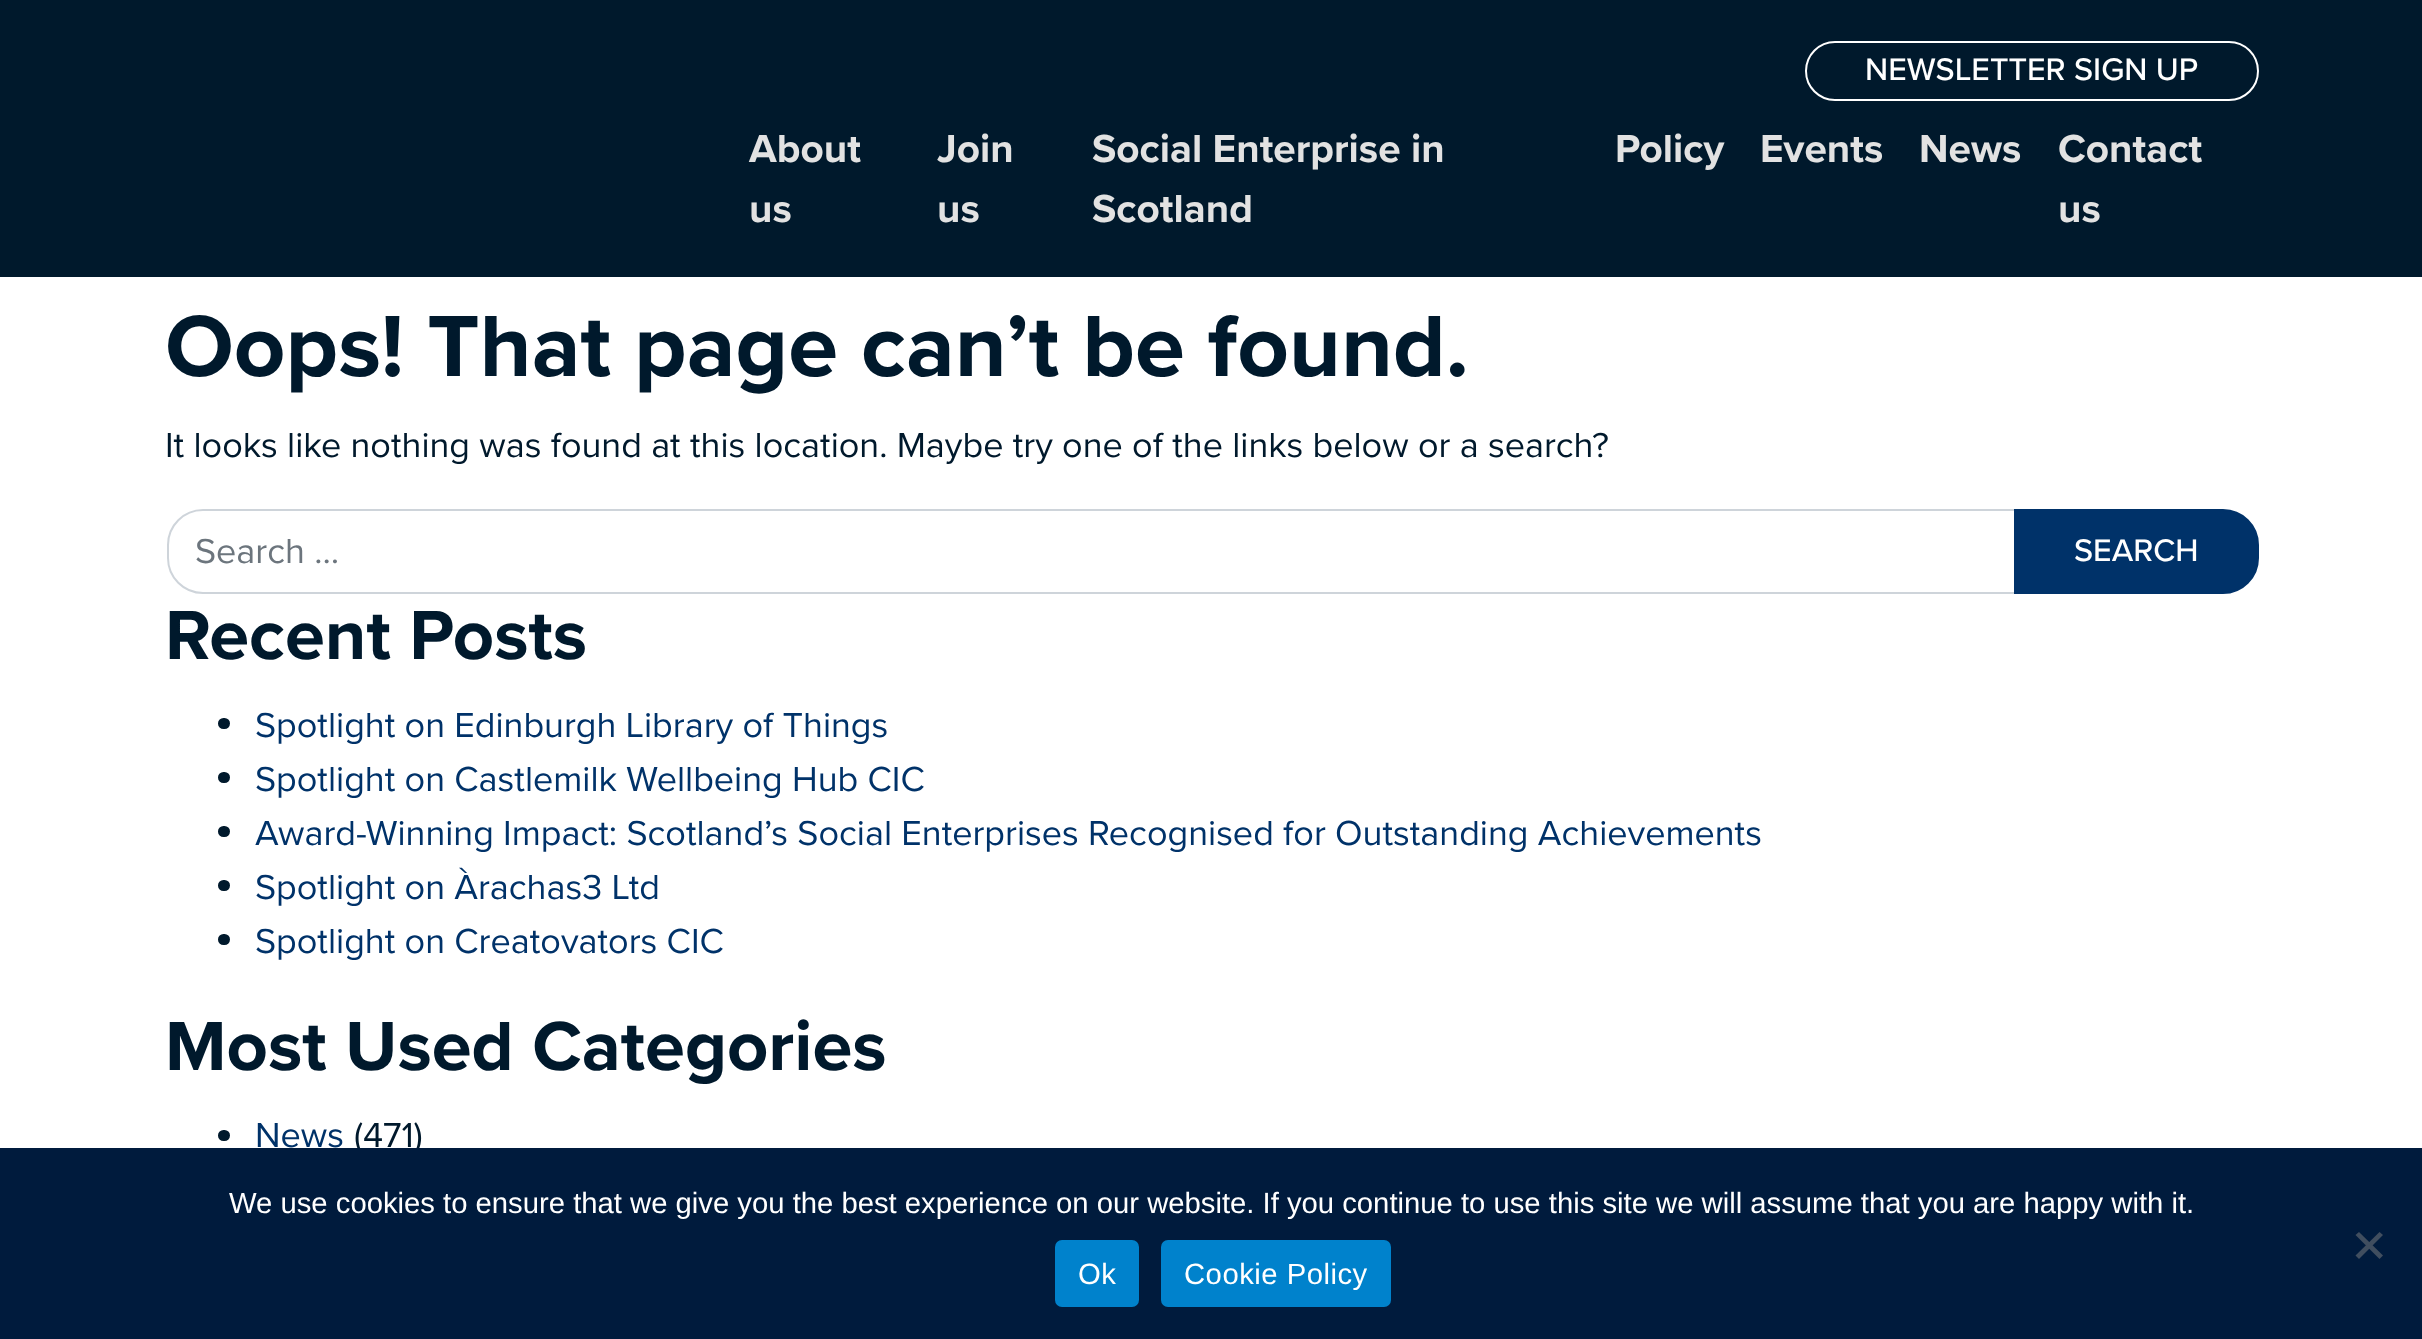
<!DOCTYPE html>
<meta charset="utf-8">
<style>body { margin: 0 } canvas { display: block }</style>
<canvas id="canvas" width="2422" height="1339"></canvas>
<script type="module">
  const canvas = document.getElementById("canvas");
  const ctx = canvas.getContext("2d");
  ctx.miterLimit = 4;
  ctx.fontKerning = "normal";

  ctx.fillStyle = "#ffffff";
  ctx.fillRect(0, 0, 2422, 1339);
  ctx.fillStyle = "#00192c";
  ctx.fillRect(0, 0, 2422, 277);
  ctx.beginPath();
  ctx.roundRect(1806, 42, 452, 58, 29);
  ctx.strokeStyle = "#ffffff";
  ctx.lineWidth = 2;
  ctx.stroke();
  ctx.font = "500 32.4px Proxima Nova";
  ctx.fillStyle = "#ffffff";
  ctx.fillText("NEWSLETTER SIGN UP", 1865, 80);
  ctx.font = "bold 40.5px Proxima Nova";
  ctx.fillStyle = "#e2e2e2";
  ctx.fillText("About", 749, 162);
  ctx.fillText("us", 749, 222);
  ctx.fillText("Join", 937, 162);
  ctx.fillText("us", 937, 222);
  ctx.fillText("Social Enterprise in", 1092, 162);
  ctx.fillText("Scotland", 1092, 222);
  ctx.fillText("Policy", 1615, 162);
  ctx.fillText("Events", 1760, 162);
  ctx.fillText("News", 1919, 162);
  ctx.fillText("Contact", 2058, 162);
  ctx.fillText("us", 2058, 222);
  ctx.font = "bold 90px Proxima Nova";
  ctx.fillStyle = "#00192c";
  ctx.fillText("Oops! That page can’t be found.", 165, 376);
  ctx.font = "36px Proxima Nova";
  ctx.fillText("It looks like nothing was found at this location. Maybe try one of the links below or a search?", 165, 457);
  ctx.beginPath();
  ctx.roundRect(168, 510, 1847, 83, [35, 0, 0, 35]);
  ctx.strokeStyle = "#ced4da";
  ctx.stroke();
  ctx.fillStyle = "#6c757d";
  ctx.fillText("Search …", 195, 563);
  ctx.fillStyle = "#003269";
  ctx.beginPath();
  ctx.roundRect(2015, 510, 243, 83, [0, 35, 35, 0]);
  ctx.fill();
  ctx.strokeStyle = "#003269";
  ctx.stroke();
  ctx.font = "500 32.4px Proxima Nova";
  ctx.fillStyle = "#ffffff";
  ctx.fillText("SEARCH", 2074, 561);
  ctx.font = "bold 72px Proxima Nova";
  ctx.fillStyle = "#00192c";
  ctx.fillText("Recent Posts", 165, 659);
  ctx.beginPath();
  ctx.roundRect(218, 718, 12, 11, 5.5);
  ctx.fill();
  ctx.font = "36px Proxima Nova";
  ctx.fillStyle = "#003269";
  ctx.fillText("Spotlight on Edinburgh Library of Things", 255, 737);
  ctx.fillStyle = "#00192c";
  ctx.beginPath();
  ctx.roundRect(218, 772, 12, 11, 5.5);
  ctx.fill();
  ctx.fillStyle = "#003269";
  ctx.fillText("Spotlight on Castlemilk Wellbeing Hub CIC", 255, 791);
  ctx.fillStyle = "#00192c";
  ctx.beginPath();
  ctx.roundRect(218, 826, 12, 11, 5.5);
  ctx.fill();
  ctx.fillStyle = "#003269";
  ctx.fillText("Award-Winning Impact: Scotland’s Social Enterprises Recognised for Outstanding Achievements", 255, 845);
  ctx.fillStyle = "#00192c";
  ctx.beginPath();
  ctx.roundRect(218, 880, 12, 11, 5.5);
  ctx.fill();
  ctx.fillStyle = "#003269";
  ctx.fillText("Spotlight on Àrachas3 Ltd", 255, 899);
  ctx.fillStyle = "#00192c";
  ctx.beginPath();
  ctx.roundRect(218, 934, 12, 11, 5.5);
  ctx.fill();
  ctx.fillStyle = "#003269";
  ctx.fillText("Spotlight on Creatovators CIC", 255, 953);
  ctx.font = "bold 72px Proxima Nova";
  ctx.fillStyle = "#00192c";
  ctx.fillText("Most Used Categories", 165, 1070);
  ctx.beginPath();
  ctx.roundRect(218, 1130, 12, 11, 5.5);
  ctx.fill();
  ctx.font = "36px Proxima Nova";
  ctx.fillStyle = "#003269";
  ctx.fillText("News", 255, 1147);
  ctx.fillStyle = "#00192c";
  ctx.fillText("(471)", 354, 1147);
  ctx.fillStyle = "#001b3d";
  ctx.fillRect(0, 1148, 2422, 191);
  ctx.font = "29.25px Liberation Sans";
  ctx.fillStyle = "#ffffff";
  ctx.fillText("We use cookies to ensure that we give you the best experience on our website. If you continue to use this site we will assume that you are happy with it.", 229, 1213);
  ctx.fillStyle = "#404e5f";
  ctx.beginPath();
  ctx.moveTo(2379.5, 1232);
  ctx.lineTo(2383, 1235);
  ctx.lineTo(2359, 1259);
  ctx.lineTo(2355.5, 1255.5);
  ctx.closePath();
  ctx.fill();
  ctx.beginPath();
  ctx.moveTo(2355.5, 1235);
  ctx.lineTo(2359, 1232);
  ctx.lineTo(2383, 1255.5);
  ctx.lineTo(2379.5, 1259);
  ctx.closePath();
  ctx.fill();
  ctx.fillStyle = "#0082cc";
  ctx.beginPath();
  ctx.roundRect(1055, 1240, 84, 67, 7);
  ctx.fill();
  ctx.letterSpacing = "0.5px";
  ctx.fillStyle = "#ffffff";
  ctx.fillText("Ok", 1078, 1284);
  ctx.fillStyle = "#0082cc";
  ctx.beginPath();
  ctx.roundRect(1161, 1240, 230, 67, 7);
  ctx.fill();
  ctx.fillStyle = "#ffffff";
  ctx.fillText("Cookie Policy", 1184, 1284);
</script>
